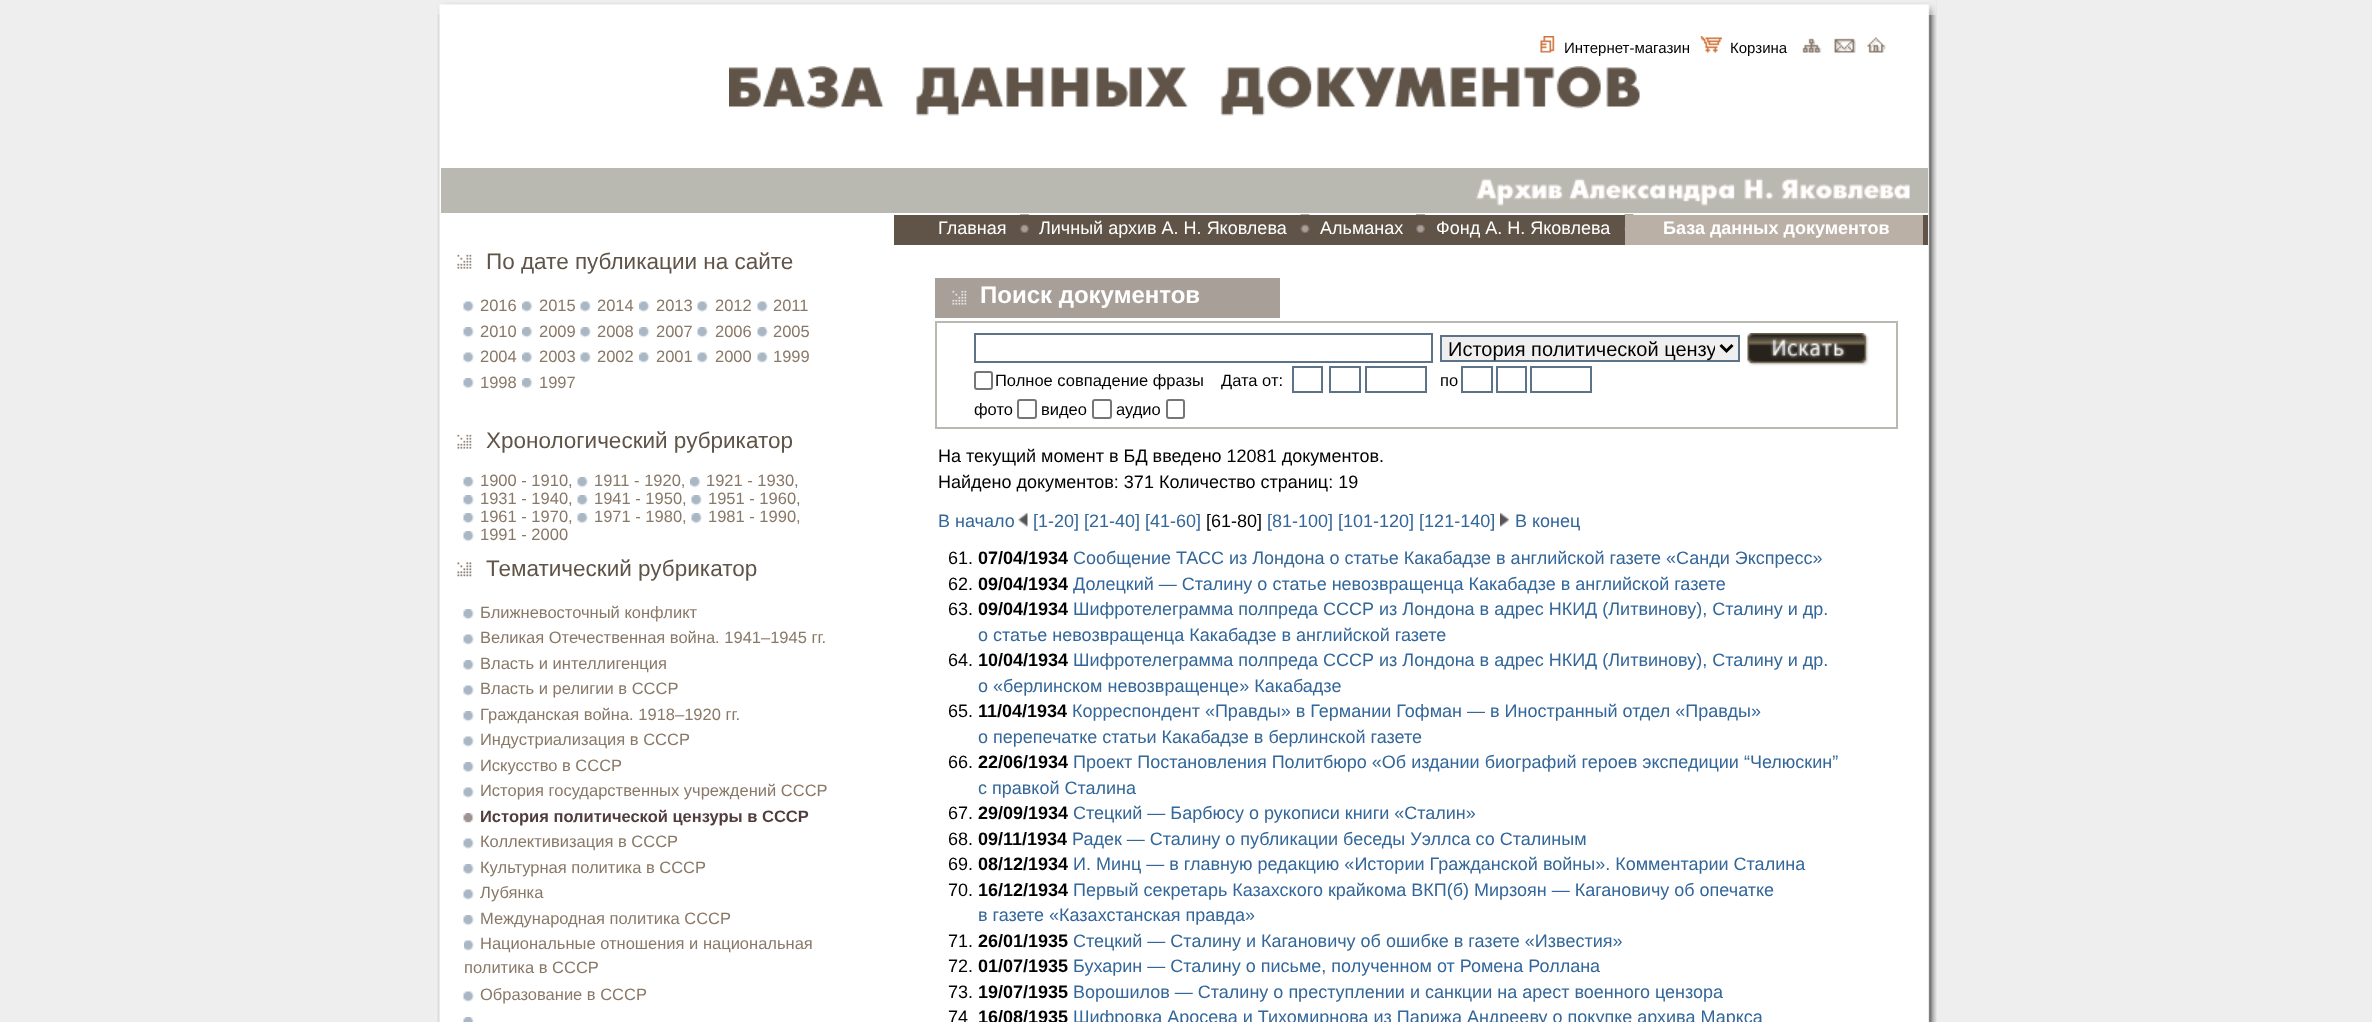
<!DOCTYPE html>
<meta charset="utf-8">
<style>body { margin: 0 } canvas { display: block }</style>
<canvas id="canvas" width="2372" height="1022"></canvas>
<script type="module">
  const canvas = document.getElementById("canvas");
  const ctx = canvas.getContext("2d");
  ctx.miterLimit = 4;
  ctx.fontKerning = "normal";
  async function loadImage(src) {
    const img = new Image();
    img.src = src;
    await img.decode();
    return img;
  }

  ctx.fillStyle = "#eeeeee";
  ctx.fillRect(0, 0, 2372, 1022);
  ctx.drawImage(await loadImage("img1.png"), 437, 0, 1500, 1022);
  ctx.drawImage(await loadImage("img2.png"), 437, 0, 1500, 15);
  ctx.drawImage(await loadImage("img3.png"), 1540, 36, 15, 17);
  ctx.font = "15px Liberation Sans";
  ctx.fillStyle = "#000000";
  ctx.fillText("Интернет-магазин", 1564, 53);
  ctx.drawImage(await loadImage("img4.png"), 1700, 36, 22, 17);
  ctx.fillText("Корзина", 1730, 53);
  ctx.drawImage(await loadImage("img5.png"), 1802, 38, 20, 15);
  ctx.drawImage(await loadImage("img6.png"), 1834, 38, 22, 15);
  ctx.drawImage(await loadImage("img7.png"), 1867, 37, 19, 16);
  ctx.drawImage(await loadImage("img8.png"), 729, 66, 911, 50);
  ctx.fillStyle = "#b9b9b1";
  ctx.fillRect(441, 168, 1487, 45);
  ctx.drawImage(await loadImage("img9.png"), 1476, 178, 434, 28);
  ctx.drawImage(await loadImage("img10.png"), 457, 254, 15, 15);
  ctx.font = "22.5px Liberation Sans";
  ctx.fillStyle = "#605448";
  ctx.fillText("По дате публикации на сайте", 486, 269);
  ctx.drawImage(await loadImage("img11.png"), 463, 301, 11, 11);
  ctx.font = "16.5px Liberation Sans";
  ctx.fillStyle = "#897867";
  ctx.fillText("2016", 480, 311);
  ctx.drawImage(await loadImage("img12.png"), 522, 301, 11, 11);
  ctx.fillText("2015", 539, 311);
  ctx.drawImage(await loadImage("img13.png"), 580, 301, 11, 11);
  ctx.fillText("2014", 597, 311);
  ctx.drawImage(await loadImage("img14.png"), 639, 301, 11, 11);
  ctx.fillText("2013", 656, 311);
  ctx.drawImage(await loadImage("img13.png"), 697, 301, 11, 11);
  ctx.fillText("2012", 715, 311);
  ctx.drawImage(await loadImage("img15.png"), 757, 301, 11, 11);
  ctx.fillText("2011", 773, 311);
  ctx.drawImage(await loadImage("img16.png"), 463, 327, 11, 11);
  ctx.fillText("2010", 480, 337);
  ctx.drawImage(await loadImage("img17.png"), 522, 327, 11, 11);
  ctx.fillText("2009", 539, 337);
  ctx.drawImage(await loadImage("img18.png"), 580, 327, 11, 11);
  ctx.fillText("2008", 597, 337);
  ctx.drawImage(await loadImage("img19.png"), 639, 327, 11, 11);
  ctx.fillText("2007", 656, 337);
  ctx.drawImage(await loadImage("img18.png"), 697, 327, 11, 11);
  ctx.fillText("2006", 715, 337);
  ctx.drawImage(await loadImage("img20.png"), 757, 327, 11, 11);
  ctx.fillText("2005", 773, 337);
  ctx.drawImage(await loadImage("img11.png"), 463, 352, 11, 11);
  ctx.fillText("2004", 480, 362);
  ctx.drawImage(await loadImage("img12.png"), 522, 352, 11, 11);
  ctx.fillText("2003", 539, 362);
  ctx.drawImage(await loadImage("img13.png"), 580, 352, 11, 11);
  ctx.fillText("2002", 597, 362);
  ctx.drawImage(await loadImage("img14.png"), 639, 352, 11, 11);
  ctx.fillText("2001", 656, 362);
  ctx.drawImage(await loadImage("img13.png"), 697, 352, 11, 11);
  ctx.fillText("2000", 715, 362);
  ctx.drawImage(await loadImage("img15.png"), 757, 352, 11, 11);
  ctx.fillText("1999", 773, 362);
  ctx.drawImage(await loadImage("img16.png"), 463, 378, 11, 11);
  ctx.fillText("1998", 480, 388);
  ctx.drawImage(await loadImage("img17.png"), 522, 378, 11, 11);
  ctx.fillText("1997", 539, 388);
  ctx.drawImage(await loadImage("img10.png"), 457, 434, 15, 15);
  ctx.font = "22.5px Liberation Sans";
  ctx.fillStyle = "#605448";
  ctx.fillText("Хронологический рубрикатор", 486, 448);
  ctx.drawImage(await loadImage("img16.png"), 463, 477, 11, 11);
  ctx.font = "16.5px Liberation Sans";
  ctx.fillStyle = "#897867";
  ctx.fillText("1900 - 1910,", 480, 486);
  ctx.drawImage(await loadImage("img18.png"), 577, 477, 11, 11);
  ctx.fillText("1911 - 1920,", 594, 486);
  ctx.drawImage(await loadImage("img19.png"), 690, 477, 11, 11);
  ctx.fillText("1921 - 1930,", 706, 486);
  ctx.drawImage(await loadImage("img16.png"), 463, 495, 11, 11);
  ctx.fillText("1931 - 1940,", 480, 504);
  ctx.drawImage(await loadImage("img18.png"), 577, 495, 11, 11);
  ctx.fillText("1941 - 1950,", 594, 504);
  ctx.drawImage(await loadImage("img18.png"), 691, 495, 11, 11);
  ctx.fillText("1951 - 1960,", 708, 504);
  ctx.drawImage(await loadImage("img16.png"), 463, 513, 11, 11);
  ctx.fillText("1961 - 1970,", 480, 522);
  ctx.drawImage(await loadImage("img18.png"), 577, 513, 11, 11);
  ctx.fillText("1971 - 1980,", 594, 522);
  ctx.drawImage(await loadImage("img18.png"), 691, 513, 11, 11);
  ctx.fillText("1981 - 1990,", 708, 522);
  ctx.drawImage(await loadImage("img16.png"), 463, 531, 11, 11);
  ctx.fillText("1991 - 2000", 480, 540);
  ctx.drawImage(await loadImage("img21.png"), 457, 562, 15, 15);
  ctx.font = "22.5px Liberation Sans";
  ctx.fillStyle = "#605448";
  ctx.fillText("Тематический рубрикатор", 486, 576);
  ctx.drawImage(await loadImage("img16.png"), 463, 609, 11, 11);
  ctx.font = "16.5px Liberation Sans";
  ctx.fillStyle = "#897867";
  ctx.fillText("Ближневосточный конфликт", 480, 618);
  ctx.drawImage(await loadImage("img11.png"), 463, 634, 11, 11);
  ctx.fillText("Великая Отечественная война. 1941–1945 гг.", 480, 643);
  ctx.drawImage(await loadImage("img16.png"), 463, 660, 11, 11);
  ctx.fillText("Власть и интеллигенция", 480, 669);
  ctx.drawImage(await loadImage("img11.png"), 463, 685, 11, 11);
  ctx.fillText("Власть и религии в СССР", 480, 694);
  ctx.drawImage(await loadImage("img16.png"), 463, 711, 11, 11);
  ctx.fillText("Гражданская война. 1918–1920 гг.", 480, 720);
  ctx.drawImage(await loadImage("img11.png"), 463, 736, 11, 11);
  ctx.fillText("Индустриализация в СССР", 480, 745);
  ctx.drawImage(await loadImage("img16.png"), 463, 762, 11, 11);
  ctx.fillText("Искусство в СССР", 480, 771);
  ctx.drawImage(await loadImage("img11.png"), 463, 787, 11, 11);
  ctx.fillText("История государственных учреждений СССР", 480, 796);
  ctx.drawImage(await loadImage("img22.png"), 463, 813, 11, 11);
  ctx.font = "bold 16.5px Liberation Sans";
  ctx.fillStyle = "#513d3e";
  ctx.fillText("История политической цензуры в СССР", 480, 822);
  ctx.drawImage(await loadImage("img11.png"), 463, 838, 11, 11);
  ctx.font = "16.5px Liberation Sans";
  ctx.fillStyle = "#897867";
  ctx.fillText("Коллективизация в СССР", 480, 847);
  ctx.drawImage(await loadImage("img16.png"), 463, 864, 11, 11);
  ctx.fillText("Культурная политика в СССР", 480, 873);
  ctx.drawImage(await loadImage("img11.png"), 463, 889, 11, 11);
  ctx.fillText("Лубянка", 480, 898);
  ctx.drawImage(await loadImage("img16.png"), 463, 915, 11, 11);
  ctx.fillText("Международная политика СССР", 480, 924);
  ctx.drawImage(await loadImage("img23.png"), 464, 940, 10, 11);
  ctx.fillText("Национальные отношения и национальная", 480, 949);
  ctx.fillText("политика в СССР", 464, 973);
  ctx.drawImage(await loadImage("img11.png"), 463, 991, 11, 11);
  ctx.fillText("Образование в СССР", 480, 1000);
  ctx.drawImage(await loadImage("img24.png"), 463, 1017, 11, 5);
  ctx.fillStyle = "#605448";
  ctx.fillRect(894, 215, 1034, 30);
  ctx.font = "18px Liberation Sans";
  ctx.fillStyle = "#ffffff";
  ctx.fillText("Главная", 938, 234);
  ctx.drawImage(await loadImage("img25.png"), 1020, 214, 9, 19);
  ctx.fillText("Личный архив А. Н. Яковлева", 1039, 234);
  ctx.drawImage(await loadImage("img26.png"), 1300, 214, 10, 19);
  ctx.fillText("Альманах", 1320, 234);
  ctx.drawImage(await loadImage("img27.png"), 1416, 214, 9, 19);
  ctx.fillText("Фонд А. Н. Яковлева", 1436, 234);
  ctx.drawImage(await loadImage("img28.png"), 1624, 214, 10, 19);
  ctx.fillStyle = "#bbb0a6";
  ctx.fillRect(1625, 215, 298, 30);
  ctx.font = "bold 18px Liberation Sans";
  ctx.fillStyle = "#ffffff";
  ctx.fillText("База данных документов", 1663, 234);
  ctx.fillStyle = "#a89f98";
  ctx.fillRect(935, 278, 345, 40);
  ctx.drawImage(await loadImage("img29.png"), 952, 290, 15, 15);
  ctx.font = "bold 24px Liberation Sans";
  ctx.fillStyle = "#ffffff";
  ctx.fillText("Поиск документов", 980, 303);
  ctx.strokeStyle = "#b9b9b1";
  ctx.lineWidth = 2;
  ctx.strokeRect(936, 322, 961, 106);
  ctx.strokeStyle = "#5c7388";
  ctx.strokeRect(975, 334, 457, 28);
  ctx.fillStyle = "#efefef";
  ctx.beginPath();
  ctx.rect(1441, 336, 298, 25);
  ctx.fill();
  ctx.stroke();
  ctx.beginPath();
  ctx.moveTo(1720.5, 345);
  ctx.lineTo(1726.5, 351);
  ctx.lineTo(1732.5, 345);
  ctx.strokeStyle = "#000000";
  ctx.lineWidth = 3;
  ctx.stroke();
  ctx.save();
  ctx.beginPath();
  ctx.rect(1448, 336, 267, 26);
  ctx.clip();
  ctx.font = "20px Liberation Sans";
  ctx.fillStyle = "#000000";
  ctx.fillText("История политической цензу", 1448, 356);
  ctx.restore();
  ctx.drawImage(await loadImage("img30.png"), 1747, 333, 122, 33);
  ctx.beginPath();
  ctx.roundRect(975, 372, 17, 17, 2);
  ctx.strokeStyle = "#767676";
  ctx.lineWidth = 2;
  ctx.stroke();
  ctx.font = "16.5px Liberation Sans";
  ctx.fillStyle = "#000000";
  ctx.fillText("Полное совпадение фразы", 995, 386);
  ctx.fillText("Дата от:", 1221, 386);
  ctx.strokeStyle = "#5c7388";
  ctx.strokeRect(1293, 367, 29, 25);
  ctx.strokeRect(1330, 367, 30, 25);
  ctx.strokeRect(1366, 367, 60, 25);
  ctx.fillText("по", 1440, 386);
  ctx.strokeRect(1462, 367, 30, 25);
  ctx.strokeRect(1497, 367, 29, 25);
  ctx.strokeRect(1531, 367, 60, 25);
  ctx.fillText("фото", 974, 415);
  ctx.beginPath();
  ctx.roundRect(1018, 400, 18, 18, 2);
  ctx.strokeStyle = "#767676";
  ctx.stroke();
  ctx.fillText("видео", 1041, 415);
  ctx.beginPath();
  ctx.roundRect(1093, 400, 18, 18, 2);
  ctx.stroke();
  ctx.fillText("аудио", 1116, 415);
  ctx.beginPath();
  ctx.roundRect(1167, 400, 17, 18, 2);
  ctx.stroke();
  ctx.font = "18px Liberation Sans";
  ctx.fillText("На текущий момент в БД введено 12081 документов.", 938, 462);
  ctx.fillText("Найдено документов: 371 Количество страниц: 19", 938, 488);
  ctx.fillStyle = "#336699";
  ctx.fillText("В начало", 938, 527);
  ctx.drawImage(await loadImage("img31.png"), 1018, 513, 10, 14);
  ctx.fillText("[1-20] [21-40] [41-60]", 1033, 527);
  ctx.fillStyle = "#000000";
  ctx.fillText("[61-80]", 1206, 527);
  ctx.fillStyle = "#336699";
  ctx.fillText("[81-100] [101-120] [121-140]", 1267, 527);
  ctx.drawImage(await loadImage("img32.png"), 1500, 513, 9, 14);
  ctx.fillText("В конец", 1515, 527);
  ctx.fillStyle = "#000000";
  ctx.fillText("61.", 948, 564);
  ctx.font = "bold 18px Liberation Sans";
  ctx.fillText("07/04/1934", 978, 564);
  ctx.font = "18px Liberation Sans";
  ctx.fillStyle = "#336699";
  ctx.fillText("Сообщение ТАСС из Лондона о статье Какабадзе в английской газете «Санди Экспресс»", 1073, 564);
  ctx.fillStyle = "#000000";
  ctx.fillText("62.", 948, 590);
  ctx.font = "bold 18px Liberation Sans";
  ctx.fillText("09/04/1934", 978, 590);
  ctx.font = "18px Liberation Sans";
  ctx.fillStyle = "#336699";
  ctx.fillText("Долецкий — Сталину о статье невозвращенца Какабадзе в английской газете", 1073, 590);
  ctx.fillStyle = "#000000";
  ctx.fillText("63.", 948, 615);
  ctx.font = "bold 18px Liberation Sans";
  ctx.fillText("09/04/1934", 978, 615);
  ctx.font = "18px Liberation Sans";
  ctx.fillStyle = "#336699";
  ctx.fillText("Шифротелеграмма полпреда СССР из Лондона в адрес НКИД (Литвинову), Сталину и др.", 1073, 615);
  ctx.fillText("о статье невозвращенца Какабадзе в английской газете", 978, 641);
  ctx.fillStyle = "#000000";
  ctx.fillText("64.", 948, 666);
  ctx.font = "bold 18px Liberation Sans";
  ctx.fillText("10/04/1934", 978, 666);
  ctx.font = "18px Liberation Sans";
  ctx.fillStyle = "#336699";
  ctx.fillText("Шифротелеграмма полпреда СССР из Лондона в адрес НКИД (Литвинову), Сталину и др.", 1073, 666);
  ctx.fillText("о «берлинском невозвращенце» Какабадзе", 978, 692);
  ctx.fillStyle = "#000000";
  ctx.fillText("65.", 948, 717);
  ctx.font = "bold 18px Liberation Sans";
  ctx.fillText("11/04/1934", 978, 717);
  ctx.font = "18px Liberation Sans";
  ctx.fillStyle = "#336699";
  ctx.fillText("Корреспондент «Правды» в Германии Гофман — в Иностранный отдел «Правды»", 1072, 717);
  ctx.fillText("о перепечатке статьи Какабадзе в берлинской газете", 978, 743);
  ctx.fillStyle = "#000000";
  ctx.fillText("66.", 948, 768);
  ctx.font = "bold 18px Liberation Sans";
  ctx.fillText("22/06/1934", 978, 768);
  ctx.font = "18px Liberation Sans";
  ctx.fillStyle = "#336699";
  ctx.fillText("Проект Постановления Политбюро «Об издании биографий героев экспедиции “Челюскин”", 1073, 768);
  ctx.fillText("с правкой Сталина", 978, 794);
  ctx.fillStyle = "#000000";
  ctx.fillText("67.", 948, 819);
  ctx.font = "bold 18px Liberation Sans";
  ctx.fillText("29/09/1934", 978, 819);
  ctx.font = "18px Liberation Sans";
  ctx.fillStyle = "#336699";
  ctx.fillText("Стецкий — Барбюсу о рукописи книги «Сталин»", 1073, 819);
  ctx.fillStyle = "#000000";
  ctx.fillText("68.", 948, 845);
  ctx.font = "bold 18px Liberation Sans";
  ctx.fillText("09/11/1934", 978, 845);
  ctx.font = "18px Liberation Sans";
  ctx.fillStyle = "#336699";
  ctx.fillText("Радек — Сталину о публикации беседы Уэллса со Сталиным", 1072, 845);
  ctx.fillStyle = "#000000";
  ctx.fillText("69.", 948, 870);
  ctx.font = "bold 18px Liberation Sans";
  ctx.fillText("08/12/1934", 978, 870);
  ctx.font = "18px Liberation Sans";
  ctx.fillStyle = "#336699";
  ctx.fillText("И. Минц — в главную редакцию «Истории Гражданской войны». Комментарии Сталина", 1073, 870);
  ctx.fillStyle = "#000000";
  ctx.fillText("70.", 948, 896);
  ctx.font = "bold 18px Liberation Sans";
  ctx.fillText("16/12/1934", 978, 896);
  ctx.font = "18px Liberation Sans";
  ctx.fillStyle = "#336699";
  ctx.fillText("Первый секретарь Казахского крайкома ВКП(б) Мирзоян — Кагановичу об опечатке", 1073, 896);
  ctx.fillText("в газете «Казахстанская правда»", 978, 921);
  ctx.fillStyle = "#000000";
  ctx.fillText("71.", 948, 947);
  ctx.font = "bold 18px Liberation Sans";
  ctx.fillText("26/01/1935", 978, 947);
  ctx.font = "18px Liberation Sans";
  ctx.fillStyle = "#336699";
  ctx.fillText("Стецкий — Сталину и Кагановичу об ошибке в газете «Известия»", 1073, 947);
  ctx.fillStyle = "#000000";
  ctx.fillText("72.", 948, 972);
  ctx.font = "bold 18px Liberation Sans";
  ctx.fillText("01/07/1935", 978, 972);
  ctx.font = "18px Liberation Sans";
  ctx.fillStyle = "#336699";
  ctx.fillText("Бухарин — Сталину о письме, полученном от Ромена Роллана", 1073, 972);
  ctx.fillStyle = "#000000";
  ctx.fillText("73.", 948, 998);
  ctx.font = "bold 18px Liberation Sans";
  ctx.fillText("19/07/1935", 978, 998);
  ctx.font = "18px Liberation Sans";
  ctx.fillStyle = "#336699";
  ctx.fillText("Ворошилов — Сталину о преступлении и санкции на арест военного цензора", 1073, 998);
  ctx.fillStyle = "#000000";
  ctx.fillText("74", 948, 1023);
  ctx.font = "bold 18px Liberation Sans";
  ctx.fillText("16/08/1935", 978, 1023);
  ctx.font = "18px Liberation Sans";
  ctx.fillStyle = "#336699";
  ctx.fillText("Шифровка Аросева и Тихомирнова из Парижа Андрееву о покупке архива Маркса", 1073, 1023);
</script>
